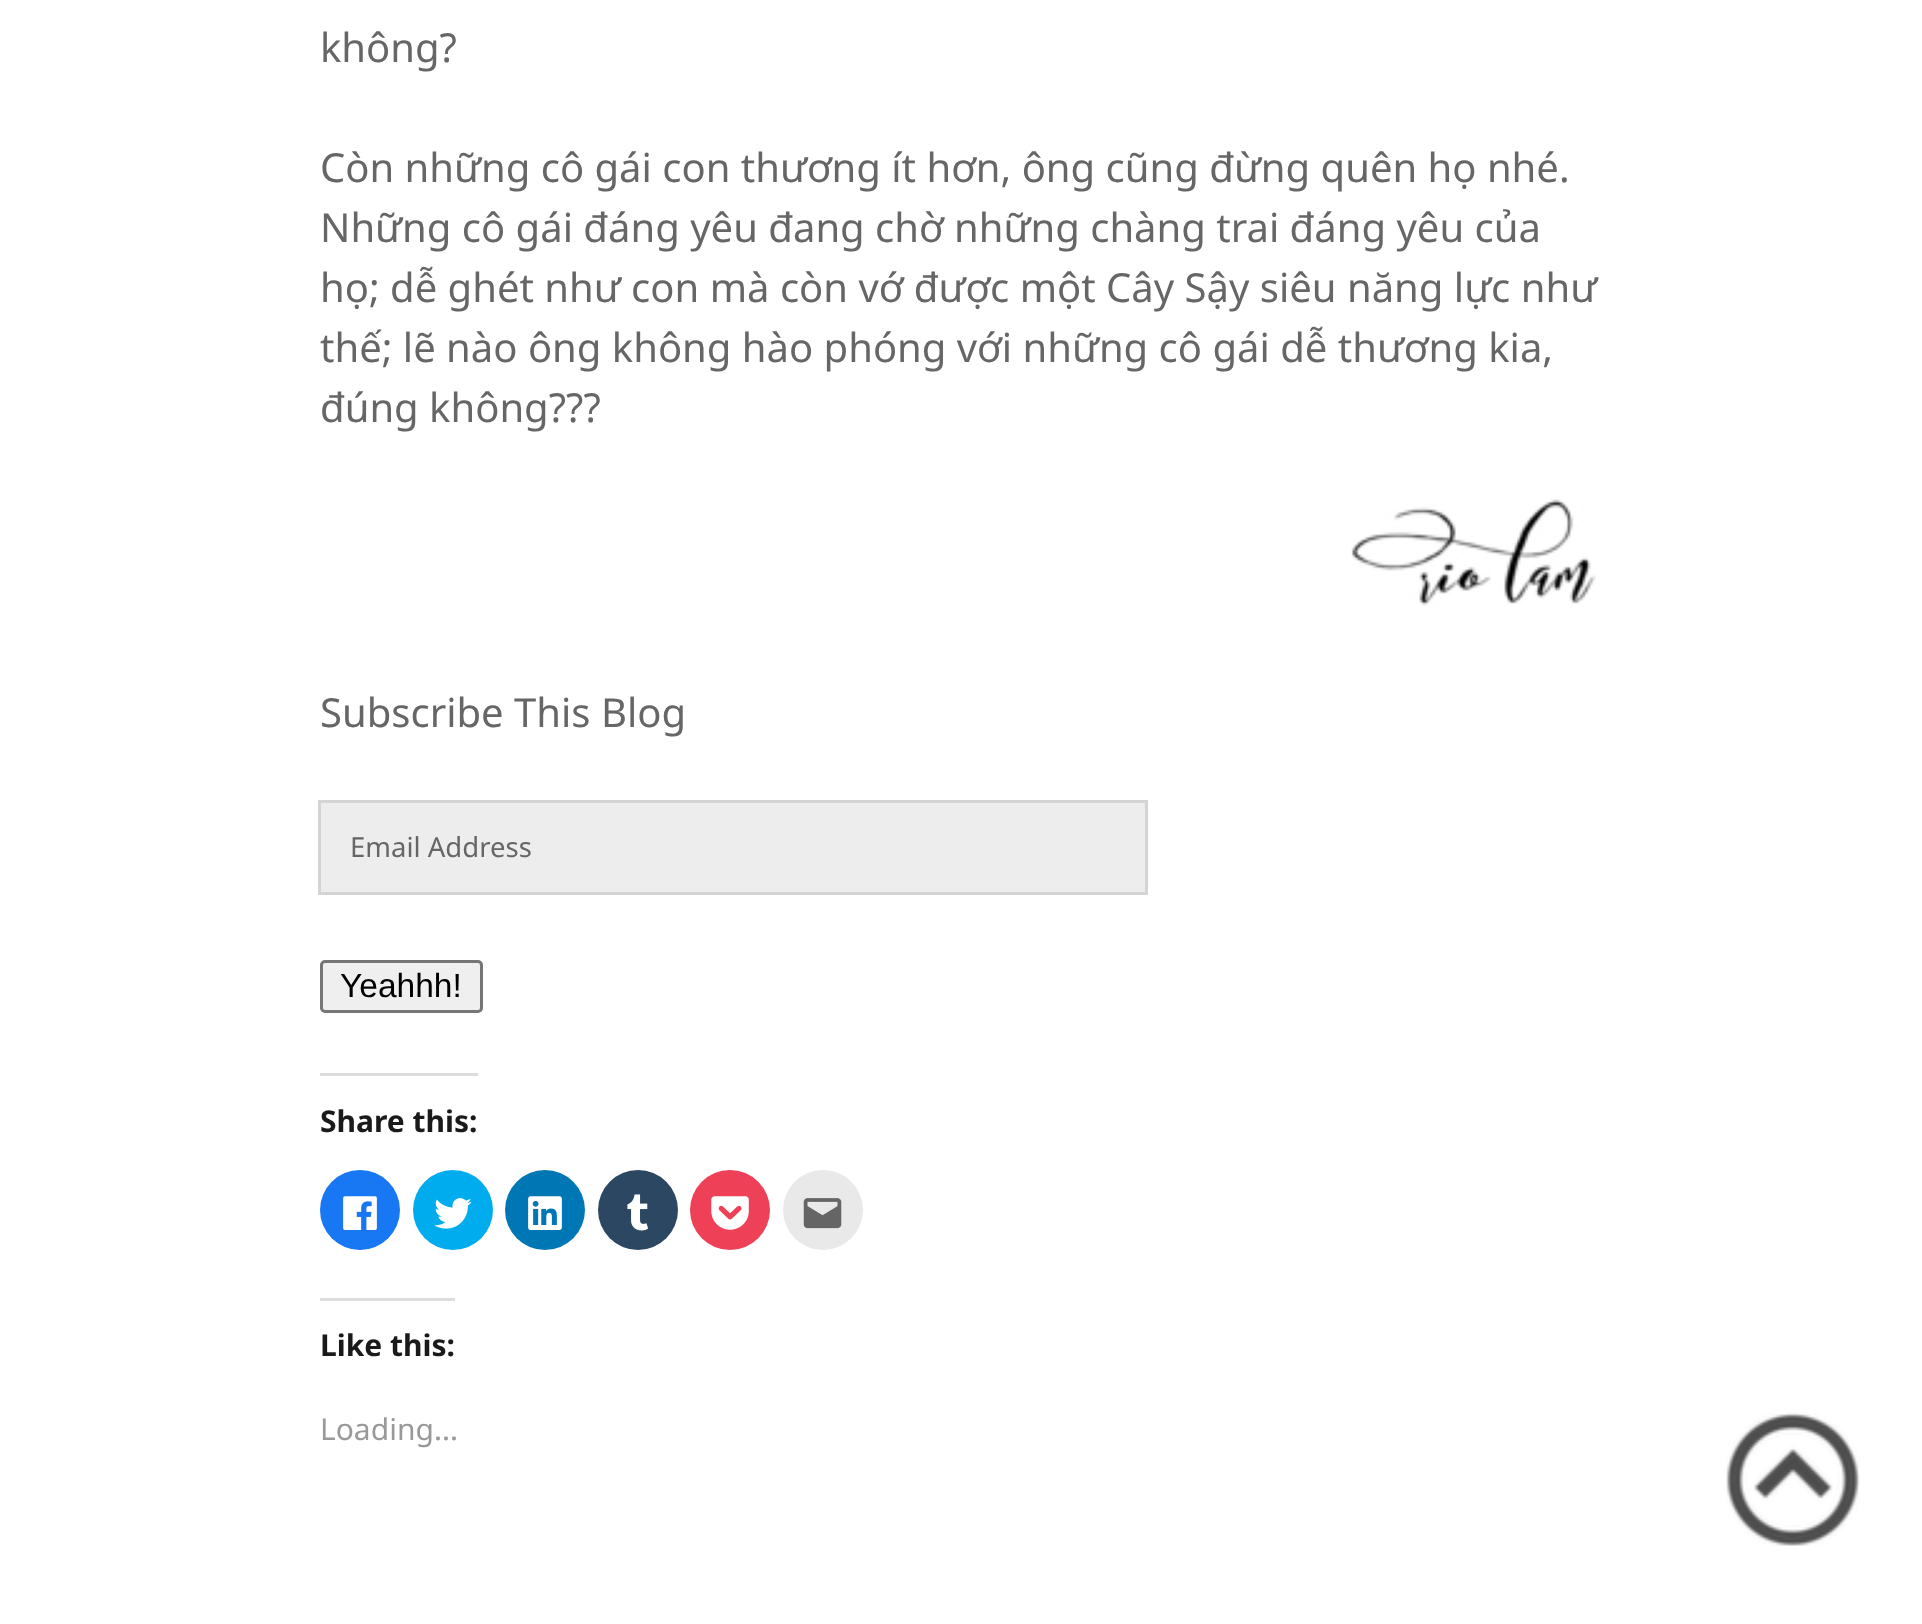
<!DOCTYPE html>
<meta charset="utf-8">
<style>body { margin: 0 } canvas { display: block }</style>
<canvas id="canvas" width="1922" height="1624"></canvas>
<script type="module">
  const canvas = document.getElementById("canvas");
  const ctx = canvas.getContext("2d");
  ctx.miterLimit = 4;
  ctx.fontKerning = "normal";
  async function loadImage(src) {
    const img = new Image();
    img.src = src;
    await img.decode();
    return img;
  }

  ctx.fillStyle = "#ffffff";
  ctx.fillRect(0, 0, 1922, 1624);
  ctx.font = "40px Noto Sans";
  ctx.fillStyle = "#666666";
  ctx.fillText("không?", 320, 62);
  ctx.fillText("Còn những cô gái con thương ít hơn, ông cũng đừng quên họ nhé.", 320, 182);
  ctx.fillText("Những cô gái đáng yêu đang chờ những chàng trai đáng yêu của", 320, 242);
  ctx.fillText("họ; dễ ghét như con mà còn vớ được một Cây Sậy siêu năng lực như", 320, 302);
  ctx.fillText("thế; lẽ nào ông không hào phóng với những cô gái dễ thương kia,", 320, 362);
  ctx.fillText("đúng không???", 320, 422);
  ctx.drawImage(await loadImage("img1.png"), 1351, 499, 245, 107);
  ctx.fillText("Subscribe This Blog", 320, 727);
  ctx.fillStyle = "#ededed";
  ctx.fillRect(321, 803, 824, 89);
  ctx.strokeStyle = "#d4d4d4";
  ctx.lineWidth = 3;
  ctx.strokeRect(319.5, 801.5, 827, 92);
  ctx.font = "27.5px Noto Sans";
  ctx.fillStyle = "#666666";
  ctx.fillText("Email Address", 350, 857);
  ctx.fillStyle = "#efefef";
  ctx.beginPath();
  ctx.roundRect(321.5, 961.5, 160, 50, 3.5);
  ctx.fill();
  ctx.strokeStyle = "#767676";
  ctx.stroke();
  ctx.font = "33.5px Liberation Sans";
  ctx.fillStyle = "#000000";
  ctx.fillText("Yeahhh!", 340, 997);
  ctx.fillStyle = "#dddddd";
  ctx.fillRect(320, 1073, 158, 3);
  ctx.font = "bold 30px Noto Sans";
  ctx.fillStyle = "#1a1a1a";
  ctx.fillText("Share this:", 320, 1132);
  ctx.fillStyle = "#1877f2";
  ctx.beginPath();
  ctx.arc(360, 1210, 40, 0, Math.PI * 2);
  ctx.fill();
  ctx.drawImage(await loadImage("img2.png"), 343, 1196, 34, 34);
  ctx.fillStyle = "#00acee";
  ctx.beginPath();
  ctx.arc(453, 1210, 40, 0, Math.PI * 2);
  ctx.fill();
  ctx.drawImage(await loadImage("img3.png"), 434, 1198, 38, 31);
  ctx.fillStyle = "#0077b5";
  ctx.beginPath();
  ctx.arc(545, 1210, 40, 0, Math.PI * 2);
  ctx.fill();
  ctx.drawImage(await loadImage("img4.png"), 528, 1196, 34, 34);
  ctx.fillStyle = "#2c4762";
  ctx.beginPath();
  ctx.arc(638, 1210, 40, 0, Math.PI * 2);
  ctx.fill();
  ctx.drawImage(await loadImage("img5.png"), 627, 1194, 22, 37);
  ctx.fillStyle = "#ee4056";
  ctx.beginPath();
  ctx.arc(730, 1210, 40, 0, Math.PI * 2);
  ctx.fill();
  ctx.drawImage(await loadImage("img6.png"), 711, 1196, 38, 34);
  ctx.fillStyle = "#e9e9e9";
  ctx.beginPath();
  ctx.arc(823, 1210, 40, 0, Math.PI * 2);
  ctx.fill();
  ctx.drawImage(await loadImage("img7.png"), 803, 1198, 39, 31);
  ctx.fillStyle = "#dddddd";
  ctx.fillRect(320, 1298, 135, 3);
  ctx.fillStyle = "#1a1a1a";
  ctx.fillText("Like this:", 320, 1356);
  ctx.font = "30px Noto Sans";
  ctx.fillStyle = "#999999";
  ctx.fillText("Loading...", 320, 1440);
  ctx.drawImage(await loadImage("img8.png"), 1726, 1412, 134, 134);
</script>
